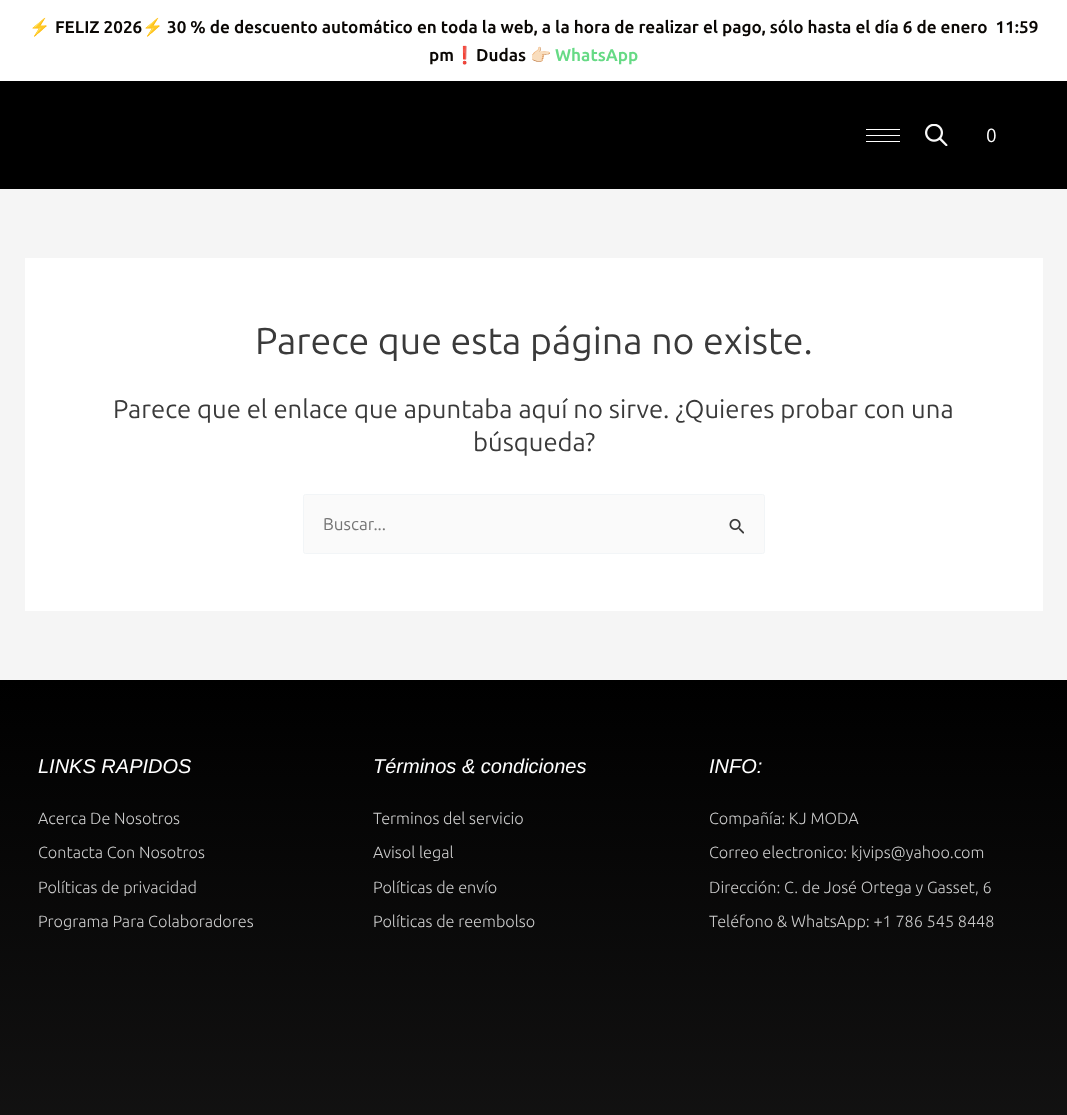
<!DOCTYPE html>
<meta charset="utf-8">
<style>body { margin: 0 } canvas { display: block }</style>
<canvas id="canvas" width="1067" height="1115"></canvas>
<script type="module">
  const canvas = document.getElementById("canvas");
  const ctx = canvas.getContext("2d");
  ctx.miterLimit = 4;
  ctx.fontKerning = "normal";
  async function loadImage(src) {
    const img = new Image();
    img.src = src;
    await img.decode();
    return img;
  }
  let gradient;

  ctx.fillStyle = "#f5f5f5";
  ctx.fillRect(0, 0, 1067, 1115);
  ctx.fillStyle = "#ffffff";
  ctx.fillRect(0, 0, 1067, 81);
  ctx.font = "bold 17.1px Noto Color Emoji";
  ctx.fillStyle = "#0a0704";
  ctx.fillText("⚡️", 29, 33);
  ctx.font = "bold 17.1px Ubuntu";
  ctx.fillText("FELIZ 2026", 55, 33);
  ctx.font = "bold 17.1px Noto Color Emoji";
  ctx.fillText("⚡️", 142, 33);
  ctx.font = "bold 17.1px Ubuntu";
  ctx.fillText("30 % de descuento automático en toda la web, a la hora de realizar el pago, sólo hasta el día 6 de enero  11:59", 167, 33);
  ctx.fillText("pm", 429, 61);
  ctx.font = "bold 17.1px Noto Color Emoji";
  ctx.fillText("❗️", 454, 61);
  ctx.font = "bold 17.1px Ubuntu";
  ctx.fillText("Dudas", 476, 61);
  ctx.font = "bold 17.1px Noto Color Emoji";
  ctx.fillText("👉🏻", 530, 61);
  ctx.font = "bold 17.1px Ubuntu";
  ctx.fillStyle = "#66da85";
  ctx.fillText("WhatsApp", 555, 61);
  ctx.fillStyle = "#000000";
  ctx.fillRect(0, 81, 1067, 108);
  ctx.fillStyle = "#ffffff";
  ctx.fillRect(866, 129, 34, 1);
  ctx.fillRect(866, 135, 34, 1);
  ctx.fillRect(866, 141, 34, 1);
  ctx.drawImage(await loadImage("img1.png"), 925, 124, 23, 22);
  ctx.font = "19px Ubuntu";
  ctx.fillText("0", 986, 142);
  ctx.fillRect(25, 258, 1018, 353);
  ctx.font = "37.5px Ubuntu";
  ctx.fillStyle = "#3a3a3a";
  ctx.fillText("Parece que esta página no existe.", 255, 354);
  ctx.font = "25.65px Ubuntu";
  ctx.fillText("Parece que el enlace que apuntaba aquí no sirve. ¿Quieres probar con una", 113, 418);
  ctx.fillText("búsqueda?", 473, 451);
  ctx.fillStyle = "#fafafa";
  ctx.beginPath();
  ctx.roundRect(303.5, 494.5, 461, 59, 2);
  ctx.fill();
  ctx.strokeStyle = "#f2f5f7";
  ctx.stroke();
  ctx.font = "17.1px Ubuntu";
  ctx.fillStyle = "#757575";
  ctx.fillText("Buscar...", 323, 530);
  ctx.drawImage(await loadImage("img2.png"), 729, 518, 15, 16);
  gradient = ctx.createLinearGradient(534, 680, 534, 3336);
  gradient.addColorStop(0, "#000000");
  gradient.addColorStop(1, "#6d6a6a");
  ctx.fillStyle = gradient;
  ctx.fillRect(0, 680, 1067, 435);
  ctx.font = "italic 20px Liberation Sans";
  ctx.fillStyle = "#ffffff";
  ctx.fillText("LINKS RAPIDOS", 38, 773);
  ctx.font = "300 16.25px Ubuntu";
  ctx.fillStyle = "#cdcdcd";
  ctx.fillText("Acerca De Nosotros", 38, 824);
  ctx.fillText("Contacta Con Nosotros", 38, 858);
  ctx.fillText("Políticas de privacidad", 38, 893);
  ctx.fillText("Programa Para Colaboradores", 38, 927);
  ctx.font = "italic 20px Liberation Sans";
  ctx.fillStyle = "#ffffff";
  ctx.fillText("Términos & condiciones", 373, 773);
  ctx.font = "300 16.25px Ubuntu";
  ctx.fillStyle = "#cdcdcd";
  ctx.fillText("Terminos del servicio", 373, 824);
  ctx.fillText("Avisol legal", 373, 858);
  ctx.fillText("Políticas de envío", 373, 893);
  ctx.fillText("Políticas de reembolso", 373, 927);
  ctx.font = "italic 20px Liberation Sans";
  ctx.fillStyle = "#ffffff";
  ctx.fillText("INFO:", 709, 773);
  ctx.font = "300 16.25px Ubuntu";
  ctx.fillStyle = "#cdcdcd";
  ctx.fillText("Compañía: KJ MODA", 709, 824);
  ctx.fillText("Correo electronico: kjvips@yahoo.com", 709, 858);
  ctx.fillText("Dirección: C. de José Ortega y Gasset, 6", 709, 893);
  ctx.fillText("Teléfono & WhatsApp: +1 786 545 8448", 709, 927);
</script>
